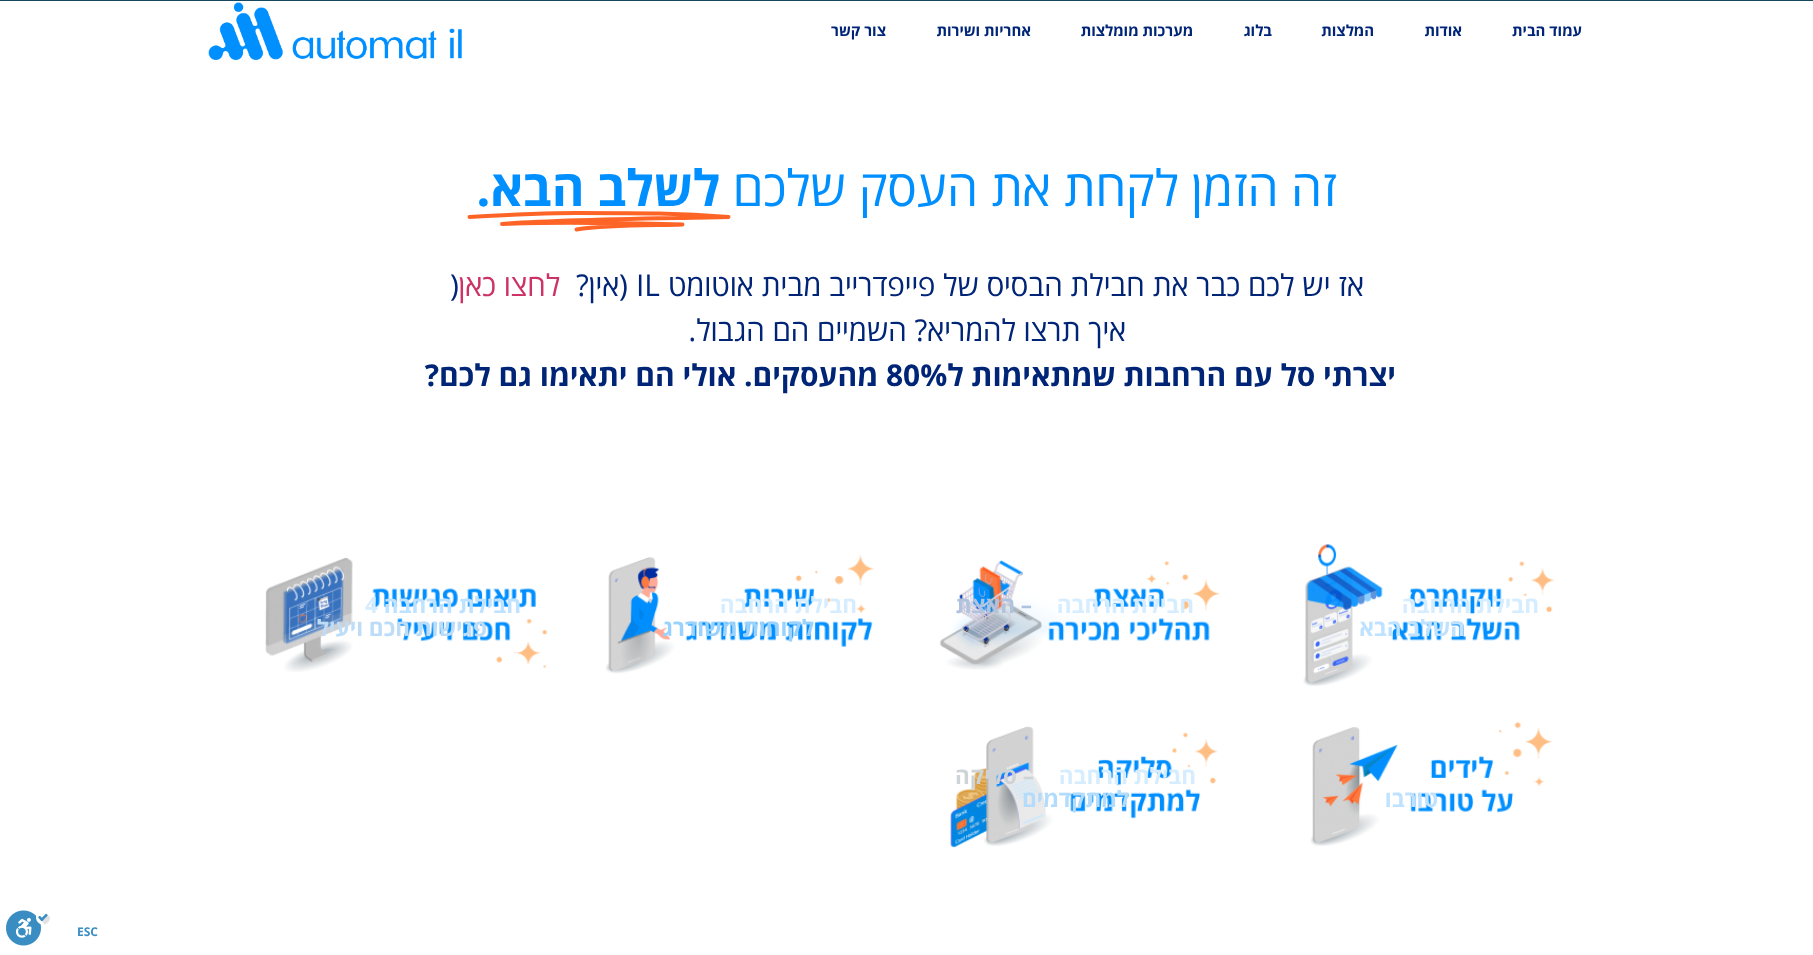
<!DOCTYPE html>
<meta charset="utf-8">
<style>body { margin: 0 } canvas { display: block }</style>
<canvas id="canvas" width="1813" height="955"></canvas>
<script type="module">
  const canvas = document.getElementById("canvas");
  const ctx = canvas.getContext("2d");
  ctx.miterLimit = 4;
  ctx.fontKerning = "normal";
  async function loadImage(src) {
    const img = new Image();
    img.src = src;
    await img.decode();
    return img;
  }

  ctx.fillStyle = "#ffffff";
  ctx.fillRect(0, 0, 1813, 955);
  ctx.direction = "rtl";
  ctx.font = "bold 15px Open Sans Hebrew";
  ctx.fillStyle = "#002577";
  ctx.fillText("עמוד הבית", 1582, 36);
  ctx.fillText("אודות", 1462, 36);
  ctx.fillText("המלצות", 1374, 36);
  ctx.fillText("בלוג", 1272, 36);
  ctx.fillText("מערכות מומלצות", 1193, 36);
  ctx.fillText("אחריות ושירות", 1031, 36);
  ctx.fillText("צור קשר", 886, 36);
  ctx.drawImage(await loadImage("img1.png"), 208, 2, 254, 58);
  ctx.font = "50px Open Sans Hebrew";
  ctx.fillStyle = "#008fff";
  ctx.fillText("זה הזמן לקחת את העסק שלכם", 1337, 206);
  ctx.font = "bold 50px Open Sans Hebrew";
  ctx.fillText("לשלב הבא.", 720, 206);
  ctx.beginPath();
  ctx.moveTo(469.5, 217);
  ctx.bezierCurveTo(496, 215.5, 550.5, 213, 576.5, 213);
  ctx.bezierCurveTo(642.5, 213, 679, 213, 728.5, 217);
  ctx.bezierCurveTo(668.5, 218.5, 562, 219, 502, 224);
  ctx.bezierCurveTo(546.5, 222, 638.5, 223, 682.5, 224.5);
  ctx.bezierCurveTo(652.5, 225.5, 609, 224.5, 576.5, 229.5);
  ctx.strokeStyle = "#ff6427";
  ctx.lineWidth = 3.9;
  ctx.lineCap = "round";
  ctx.lineJoin = "round";
  ctx.stroke();
  ctx.font = "30px Open Sans Hebrew";
  ctx.fillStyle = "#002577";
  ctx.fillText("אז יש לכם כבר את חבילת הבסיס של פייפדרייב מבית אוטומט", 1364, 296);
  ctx.direction = "ltr";
  ctx.fillText("IL", 636, 296);
  ctx.direction = "rtl";
  ctx.fillText("(אין?", 628, 296);
  ctx.fillStyle = "#cc3366";
  ctx.fillText("לחצו כאן", 560, 296);
  ctx.direction = "ltr";
  ctx.fillStyle = "#002577";
  ctx.fillText(")", 450, 296);
  ctx.direction = "rtl";
  ctx.fillText("איך תרצו להמריא? השמיים הם הגבול.", 1126, 341);
  ctx.font = "bold 30px Open Sans Hebrew";
  ctx.fillText("יצרתי סל עם הרחבות שמתאימות ל", 1396, 386);
  ctx.direction = "ltr";
  ctx.fillText("80%", 886, 386);
  ctx.direction = "rtl";
  ctx.fillText("מהעסקים. אולי הם יתאימו גם לכם?", 878, 386);
  ctx.drawImage(await loadImage("img2.png"), 1303, 544, 251, 142);
  ctx.font = "bold 22.5px Open Sans Hebrew";
  ctx.fillStyle = "#d6edff";
  ctx.fillText("חבילת הרחבה", 1539, 613);
  ctx.fillStyle = "#bee2ff";
  ctx.fillText("השלב הבא", 1465, 636);
  ctx.drawImage(await loadImage("img3.png"), 939, 560, 281, 110);
  ctx.fillStyle = "#d6edff";
  ctx.fillText("חבילת הרחבה", 1194, 613);
  ctx.fillStyle = "#afc3df";
  ctx.fillText("– האצת", 1032, 613);
  ctx.drawImage(await loadImage("img4.png"), 605, 554, 269, 120);
  ctx.fillStyle = "#d6edff";
  ctx.fillText("חבילת הרחבה", 857, 613);
  ctx.fillStyle = "#9ad2fe";
  ctx.fillText("לקוחות משודרג", 814, 636);
  ctx.drawImage(await loadImage("img5.png"), 265, 557, 283, 115);
  ctx.fillStyle = "#bee2ff";
  ctx.fillText("חבילת הרחבה", 521, 613);
  ctx.direction = "ltr";
  ctx.fillStyle = "#d6edff";
  ctx.fillText("4", 365, 613);
  ctx.direction = "rtl";
  ctx.fillStyle = "#bcdcf8";
  ctx.fillText("פגישות חכם ויעיל", 487, 636);
  ctx.drawImage(await loadImage("img6.png"), 1310, 721, 242, 125);
  ctx.fillStyle = "#bee2ff";
  ctx.fillText("טורבו", 1438, 807);
  ctx.drawImage(await loadImage("img7.png"), 950, 726, 268, 122);
  ctx.fillStyle = "#d6edff";
  ctx.fillText("חבילת הרחבה", 1196, 784);
  ctx.fillStyle = "#cdd3d7";
  ctx.fillText("– סליקה", 1034, 784);
  ctx.fillStyle = "#b3dbfb";
  ctx.fillText("למתקדמים", 1129, 807);
  ctx.fillStyle = "#15495f";
  ctx.fillRect(0, 0, 1813, 1);
  ctx.direction = "ltr";
  ctx.font = "bold 12px Open Sans Hebrew";
  ctx.fillStyle = "#3a8dc2";
  ctx.fillText("ESC", 77, 936);
  ctx.drawImage(await loadImage("img8.png"), 6, 910, 44, 36);
</script>
